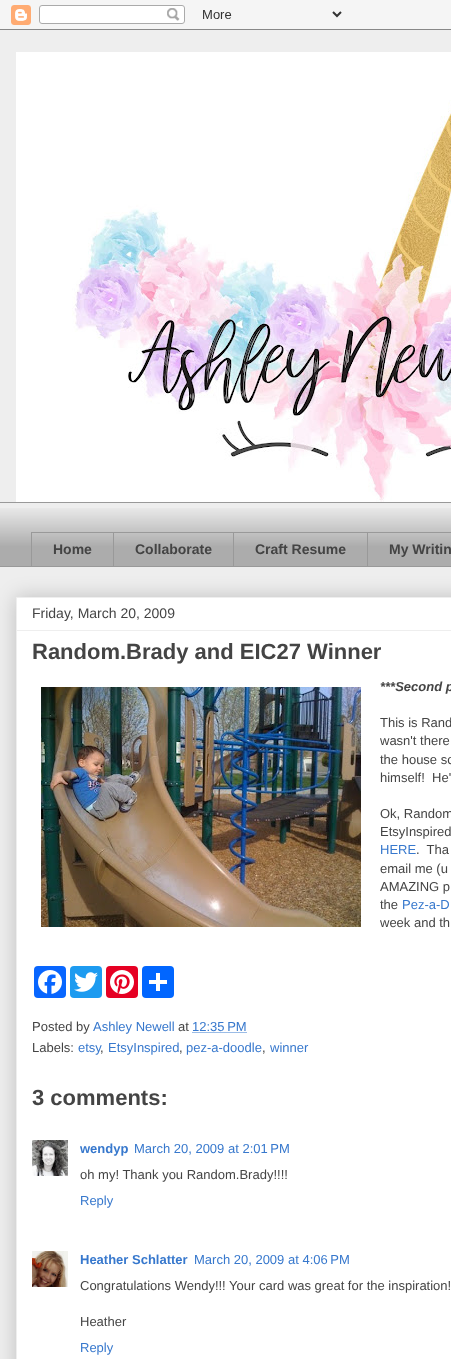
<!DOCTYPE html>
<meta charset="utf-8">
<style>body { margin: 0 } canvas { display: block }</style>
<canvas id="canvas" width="451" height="1359"></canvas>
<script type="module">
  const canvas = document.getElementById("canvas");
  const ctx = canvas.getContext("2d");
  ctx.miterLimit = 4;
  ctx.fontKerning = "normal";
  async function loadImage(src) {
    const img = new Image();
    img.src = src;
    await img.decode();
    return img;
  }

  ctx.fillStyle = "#eeeeee";
  ctx.fillRect(0, 0, 451, 1359);
  ctx.drawImage(await loadImage("img1.png"), 0, 0, 451, 30);
  ctx.drawImage(await loadImage("img2.png"), 16, 52, 435, 450);
  ctx.drawImage(await loadImage("img3.png"), 0, 508, 451, 58);
  ctx.fillStyle = "#999999";
  ctx.fillRect(0, 502, 451, 1);
  ctx.fillRect(31, 532, 336, 1);
  ctx.fillRect(31, 532, 1, 35);
  ctx.font = "bold 14px Liberation Sans";
  ctx.fillStyle = "#444444";
  ctx.fillText("Home", 53, 554);
  ctx.fillStyle = "#999999";
  ctx.fillRect(113, 532, 1, 35);
  ctx.fillStyle = "#444444";
  ctx.fillText("Collaborate", 135, 554);
  ctx.fillStyle = "#999999";
  ctx.fillRect(233, 532, 1, 35);
  ctx.fillStyle = "#444444";
  ctx.fillText("Craft Resume", 255, 554);
  ctx.strokeStyle = "#999999";
  ctx.strokeRect(367.5, 532.5, 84, 34);
  ctx.fillText("My Writin", 389, 554);
  ctx.fillStyle = "#999999";
  ctx.fillRect(0, 566, 367, 1);
  ctx.fillStyle = "rgba(0, 0, 0, 0.2)";
  ctx.filter = "blur(10px)";
  ctx.beginPath();
  ctx.rect(16, 597, 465, 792);
  ctx.fill();
  ctx.filter = "none";
  ctx.fillStyle = "#ffffff";
  ctx.beginPath();
  ctx.rect(16.5, 597.5, 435, 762);
  ctx.fill();
  ctx.strokeStyle = "#eeeeee";
  ctx.stroke();
  ctx.font = "14px Liberation Sans";
  ctx.fillStyle = "#444444";
  ctx.fillText("Friday, March 20, 2009", 32, 618);
  ctx.fillStyle = "#eeeeee";
  ctx.fillRect(17, 630, 434, 1);
  ctx.font = "bold 22px Liberation Sans";
  ctx.fillStyle = "#444444";
  ctx.fillText("Random.Brady and EIC27 Winner", 32, 659);
  ctx.drawImage(await loadImage("img4.png"), 41, 687, 320, 240);
  ctx.font = "italic bold 13px Liberation Sans";
  ctx.fillText("***Second p", 380, 691);
  ctx.font = "13px Liberation Sans";
  ctx.fillText("This is Rand", 380, 727);
  ctx.fillText("wasn't there", 380, 745);
  ctx.fillText("the house so", 380, 764);
  ctx.fillText("himself!  He'", 380, 782);
  ctx.fillText("Ok, Random", 380, 818);
  ctx.fillText("EtsyInspired", 380, 836);
  ctx.fillStyle = "#3778cd";
  ctx.fillText("HERE", 380, 854);
  ctx.fillStyle = "#444444";
  ctx.fillText(".  Tha", 416, 854);
  ctx.fillText("email me (u", 380, 873);
  ctx.fillText("AMAZING p", 380, 891);
  ctx.fillText("the", 380, 909);
  ctx.fillStyle = "#3778cd";
  ctx.fillText("Pez-a-D", 402, 909);
  ctx.fillStyle = "#444444";
  ctx.fillText("week and th", 380, 927);
  ctx.fillStyle = "#0866ff";
  ctx.beginPath();
  ctx.roundRect(34, 966, 32, 32, 4);
  ctx.fill();
  ctx.drawImage(await loadImage("img5.png"), 38, 970, 24, 24);
  ctx.fillStyle = "#1d9bf0";
  ctx.beginPath();
  ctx.roundRect(70, 966, 32, 32, 4);
  ctx.fill();
  ctx.drawImage(await loadImage("img6.png"), 74, 972, 24, 20);
  ctx.fillStyle = "#e60023";
  ctx.beginPath();
  ctx.roundRect(106, 966, 32, 32, 4);
  ctx.fill();
  ctx.drawImage(await loadImage("img7.png"), 110, 970, 24, 24);
  ctx.fillStyle = "#0166ff";
  ctx.beginPath();
  ctx.roundRect(142, 966, 32, 32, 4);
  ctx.fill();
  ctx.fillStyle = "#ffffff";
  ctx.fillRect(156, 973, 4, 18);
  ctx.fillRect(149, 980, 18, 4);
  ctx.fillStyle = "#444444";
  ctx.fillText("Posted by", 32, 1031);
  ctx.fillStyle = "#3778cd";
  ctx.fillText("Ashley Newell", 93, 1031);
  ctx.fillStyle = "#444444";
  ctx.fillText("at", 178, 1031);
  ctx.fillStyle = "#3778cd";
  ctx.fillText("12:35 PM", 192, 1031);
  ctx.beginPath();
  ctx.moveTo(192.5, 1032.5);
  ctx.lineTo(247, 1032.5);
  ctx.strokeStyle = "#3778cd";
  ctx.setLineDash([1, 1]);
  ctx.stroke();
  ctx.fillStyle = "#444444";
  ctx.fillText("Labels:", 32, 1052);
  ctx.fillStyle = "#3778cd";
  ctx.fillText("etsy", 78, 1052);
  ctx.fillText("EtsyInspired", 108, 1052);
  ctx.fillText("pez-a-doodle", 186, 1052);
  ctx.fillText("winner", 270, 1052);
  ctx.fillStyle = "#444444";
  ctx.fillText(",", 100, 1052);
  ctx.fillText(",", 179, 1052);
  ctx.fillText(",", 262, 1052);
  ctx.font = "bold 22px Liberation Sans";
  ctx.fillText("3 comments:", 32, 1105);
  ctx.drawImage(await loadImage("img8.png"), 32, 1140, 36, 36);
  ctx.font = "bold 13px Liberation Sans";
  ctx.fillStyle = "#3778cd";
  ctx.fillText("wendyp", 80, 1153);
  ctx.font = "13px Liberation Sans";
  ctx.fillText("March 20, 2009 at 2:01 PM", 134, 1153);
  ctx.fillStyle = "#444444";
  ctx.fillText("oh my! Thank you Random.Brady!!!!", 80, 1179);
  ctx.fillStyle = "#3778cd";
  ctx.fillText("Reply", 80, 1205);
  ctx.drawImage(await loadImage("img9.png"), 32, 1251, 36, 36);
  ctx.font = "bold 13px Liberation Sans";
  ctx.fillText("Heather Schlatter", 80, 1264);
  ctx.font = "13px Liberation Sans";
  ctx.fillText("March 20, 2009 at 4:06 PM", 194, 1264);
  ctx.fillStyle = "#444444";
  ctx.fillText("Congratulations Wendy!!! Your card was great for the inspiration!", 80, 1290);
  ctx.fillText("Heather", 80, 1326);
  ctx.fillStyle = "#3778cd";
  ctx.fillText("Reply", 80, 1352);
</script>
